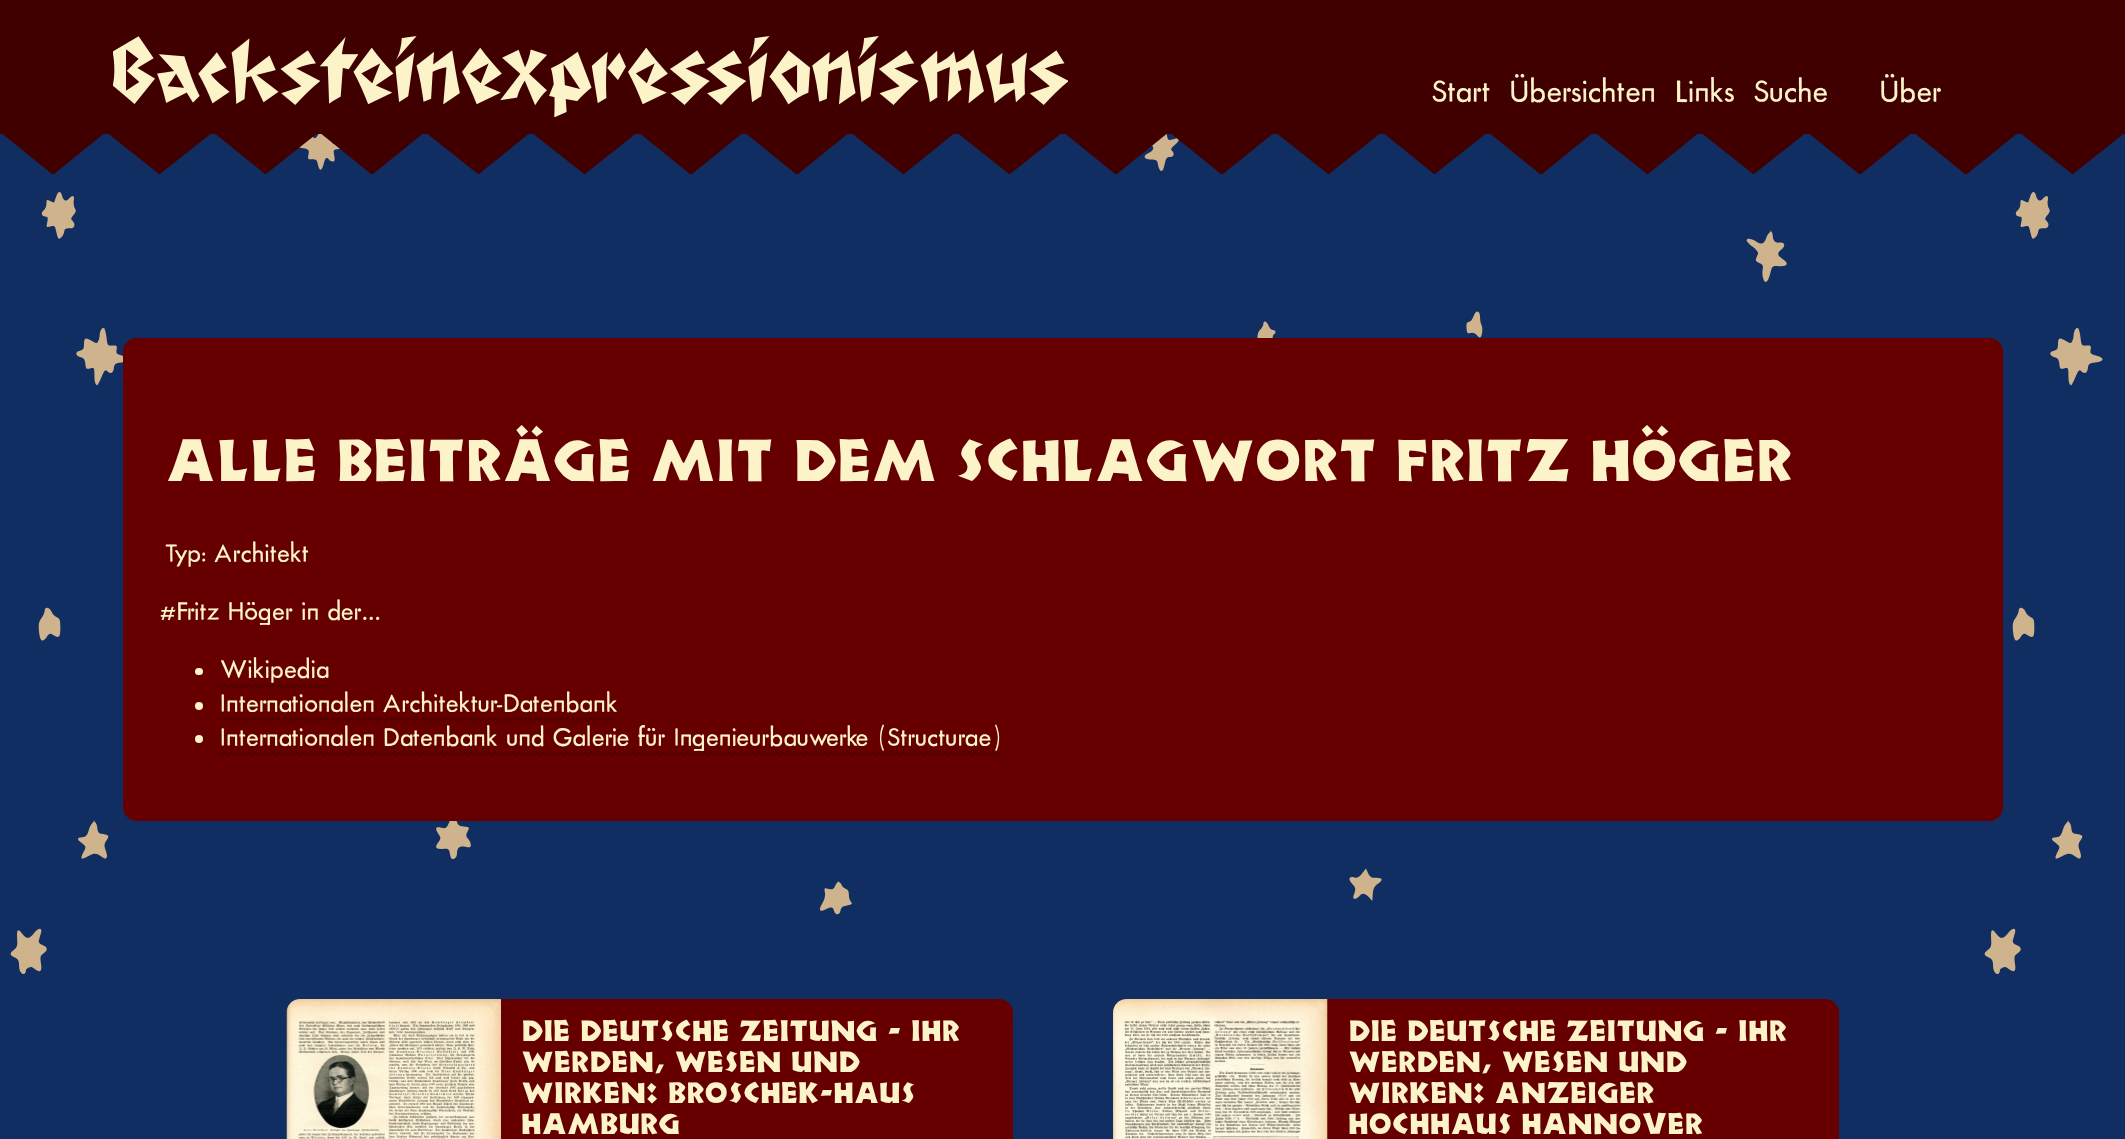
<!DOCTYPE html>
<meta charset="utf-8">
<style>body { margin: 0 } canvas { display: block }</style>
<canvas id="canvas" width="2125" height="1139"></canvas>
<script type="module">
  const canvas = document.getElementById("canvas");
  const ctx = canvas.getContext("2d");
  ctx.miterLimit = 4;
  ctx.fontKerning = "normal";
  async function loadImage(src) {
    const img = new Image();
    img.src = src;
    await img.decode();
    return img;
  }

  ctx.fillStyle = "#112e63";
  ctx.fillRect(0, 0, 2125, 1139);
  ctx.drawImage(await loadImage("img1.png"), 10, 134, 2093, 840);
  ctx.fillStyle = "#400000";
  ctx.fillRect(0, 0, 2125, 134);
  ctx.drawImage(await loadImage("img2.png"), 113, 36, 955, 81);
  ctx.font = "32.5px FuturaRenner";
  ctx.fillStyle = "#fdf3c9";
  ctx.fillText("Start", 1431, 102);
  ctx.fillText("Übersichten", 1510, 102);
  ctx.fillText("Links", 1675, 102);
  ctx.fillText("Suche", 1753, 102);
  ctx.fillText("Über", 1880, 102);
  ctx.fillStyle = "#400000";
  ctx.beginPath();
  ctx.moveTo(0, 132);
  ctx.lineTo(106, 132);
  ctx.lineTo(54, 174);
  ctx.lineTo(52, 174);
  ctx.closePath();
  ctx.moveTo(159, 174);
  ctx.lineTo(106, 132);
  ctx.lineTo(213, 132);
  ctx.lineTo(160, 174);
  ctx.closePath();
  ctx.moveTo(265, 174);
  ctx.lineTo(213, 132);
  ctx.lineTo(319, 132);
  ctx.lineTo(266, 174);
  ctx.closePath();
  ctx.moveTo(371, 174);
  ctx.lineTo(319, 132);
  ctx.lineTo(425, 132);
  ctx.lineTo(373, 174);
  ctx.closePath();
  ctx.moveTo(478, 174);
  ctx.lineTo(425, 132);
  ctx.lineTo(531, 132);
  ctx.lineTo(479, 174);
  ctx.closePath();
  ctx.moveTo(584, 174);
  ctx.lineTo(531, 132);
  ctx.lineTo(638, 132);
  ctx.lineTo(585, 174);
  ctx.closePath();
  ctx.moveTo(690, 174);
  ctx.lineTo(638, 132);
  ctx.lineTo(744, 132);
  ctx.lineTo(692, 174);
  ctx.closePath();
  ctx.moveTo(796, 174);
  ctx.lineTo(744, 132);
  ctx.lineTo(850, 132);
  ctx.lineTo(798, 174);
  ctx.closePath();
  ctx.moveTo(903, 174);
  ctx.lineTo(850, 132);
  ctx.lineTo(956, 132);
  ctx.lineTo(904, 174);
  ctx.closePath();
  ctx.moveTo(1009, 174);
  ctx.lineTo(956, 132);
  ctx.lineTo(1063, 132);
  ctx.lineTo(1010, 174);
  ctx.closePath();
  ctx.moveTo(1115, 174);
  ctx.lineTo(1063, 132);
  ctx.lineTo(1169, 132);
  ctx.lineTo(1117, 174);
  ctx.closePath();
  ctx.moveTo(1221, 174);
  ctx.lineTo(1169, 132);
  ctx.lineTo(1275, 132);
  ctx.lineTo(1223, 174);
  ctx.closePath();
  ctx.moveTo(1328, 174);
  ctx.lineTo(1275, 132);
  ctx.lineTo(1382, 132);
  ctx.lineTo(1329, 174);
  ctx.closePath();
  ctx.moveTo(1434, 174);
  ctx.lineTo(1382, 132);
  ctx.lineTo(1488, 132);
  ctx.lineTo(1435, 174);
  ctx.closePath();
  ctx.moveTo(1540, 174);
  ctx.lineTo(1488, 132);
  ctx.lineTo(1594, 132);
  ctx.lineTo(1542, 174);
  ctx.closePath();
  ctx.moveTo(1647, 174);
  ctx.lineTo(1594, 132);
  ctx.lineTo(1700, 132);
  ctx.lineTo(1648, 174);
  ctx.closePath();
  ctx.moveTo(1753, 174);
  ctx.lineTo(1700, 132);
  ctx.lineTo(1807, 132);
  ctx.lineTo(1754, 174);
  ctx.closePath();
  ctx.moveTo(1859, 174);
  ctx.lineTo(1807, 132);
  ctx.lineTo(1913, 132);
  ctx.lineTo(1861, 174);
  ctx.closePath();
  ctx.moveTo(1965, 174);
  ctx.lineTo(1913, 132);
  ctx.lineTo(2019, 132);
  ctx.lineTo(1967, 174);
  ctx.closePath();
  ctx.moveTo(2072, 174);
  ctx.lineTo(2019, 132);
  ctx.lineTo(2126, 132);
  ctx.lineTo(2073, 174);
  ctx.closePath();
  ctx.fill("evenodd");
  ctx.fillStyle = "#660000";
  ctx.beginPath();
  ctx.roundRect(123, 338, 1880, 483, 14);
  ctx.fill();
  ctx.font = "100 54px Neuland";
  ctx.fillStyle = "#fdf3c9";
  ctx.fillText("Alle Beiträge mit dem Schlagwort Fritz Höger", 165, 481);
  ctx.font = "27px FuturaRenner";
  ctx.fillText("Typ: Architekt", 165, 562);
  ctx.fillText("#Fritz Höger in der…", 160, 620);
  ctx.beginPath();
  ctx.roundRect(195, 668, 8, 7, 3.5);
  ctx.fill();
  ctx.beginPath();
  ctx.moveTo(220.5, 687);
  ctx.lineTo(330, 687);
  ctx.strokeStyle = "#520000";
  ctx.lineWidth = 3;
  ctx.setLineDash([3, 3]);
  ctx.stroke();
  ctx.fillText("Wikipedia", 220, 678);
  ctx.beginPath();
  ctx.moveTo(217.5, 685.5);
  ctx.lineTo(327, 685.5);
  ctx.stroke();
  ctx.beginPath();
  ctx.arc(199, 706, 4, 0, Math.PI * 2);
  ctx.fill();
  ctx.beginPath();
  ctx.moveTo(220.5, 720);
  ctx.lineTo(618, 720);
  ctx.stroke();
  ctx.fillText("Internationalen Architektur-Datenbank", 220, 712);
  ctx.beginPath();
  ctx.moveTo(217.5, 718.5);
  ctx.lineTo(615, 718.5);
  ctx.stroke();
  ctx.beginPath();
  ctx.arc(199, 739, 4, 0, Math.PI * 2);
  ctx.fill();
  ctx.beginPath();
  ctx.moveTo(220.5, 754.5);
  ctx.lineTo(1002, 754.5);
  ctx.stroke();
  ctx.fillText("Internationalen Datenbank und Galerie für Ingenieurbauwerke (Structurae)", 220, 746);
  ctx.beginPath();
  ctx.moveTo(217.5, 753);
  ctx.lineTo(999, 753);
  ctx.stroke();
  ctx.fillStyle = "#660000";
  ctx.beginPath();
  ctx.roundRect(287, 999, 726, 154, 14);
  ctx.fill();
  ctx.drawImage(await loadImage("img3.png"), 286, 999, 215, 140);
  ctx.font = "100 27px Neuland";
  ctx.fillStyle = "#fdf3c9";
  ctx.fillText("Die deutsche Zeitung - Ihr", 521, 1041);
  ctx.fillText("Werden, Wesen und", 521, 1072);
  ctx.fillText("Wirken: Broschek-Haus", 521, 1103);
  ctx.fillText("Hamburg", 521, 1134);
  ctx.fillStyle = "#660000";
  ctx.beginPath();
  ctx.roundRect(1113, 999, 726, 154, 14);
  ctx.fill();
  ctx.drawImage(await loadImage("img4.png"), 1113, 999, 215, 140);
  ctx.fillStyle = "#fdf3c9";
  ctx.fillText("Die deutsche Zeitung - Ihr", 1348, 1041);
  ctx.fillText("Werden, Wesen und", 1348, 1072);
  ctx.fillText("Wirken: Anzeiger", 1348, 1103);
  ctx.fillText("Hochhaus Hannover", 1348, 1134);
</script>
